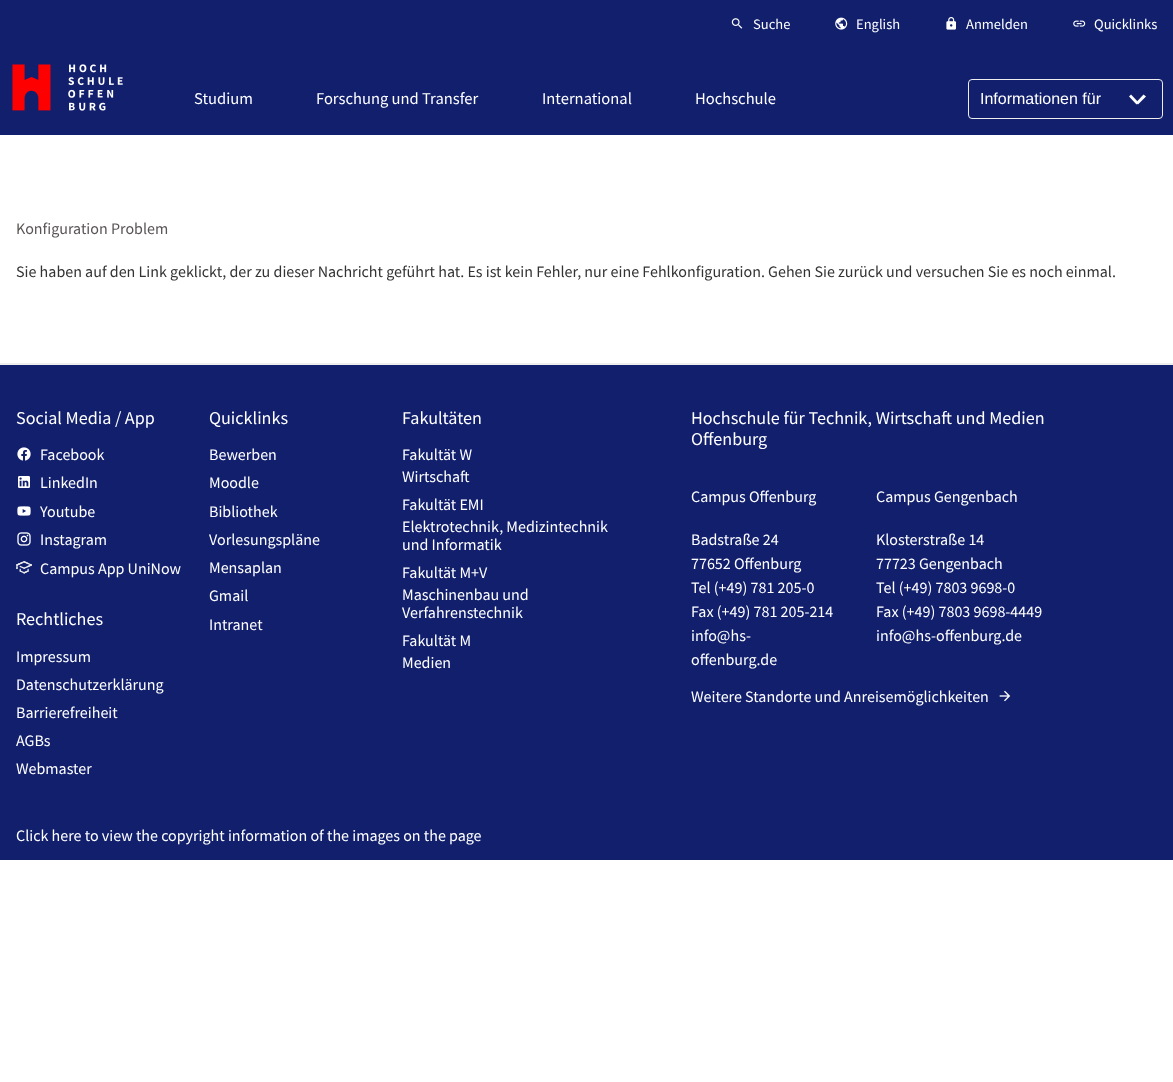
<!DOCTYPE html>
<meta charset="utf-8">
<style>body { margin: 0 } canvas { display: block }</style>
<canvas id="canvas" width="1173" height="1082"></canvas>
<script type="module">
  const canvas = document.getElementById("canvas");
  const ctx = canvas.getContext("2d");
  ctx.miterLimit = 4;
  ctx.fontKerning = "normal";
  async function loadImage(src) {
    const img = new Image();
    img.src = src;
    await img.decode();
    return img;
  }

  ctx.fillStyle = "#ffffff";
  ctx.fillRect(0, 0, 1173, 1082);
  ctx.fillStyle = "#111f6d";
  ctx.fillRect(0, 0, 1173, 135);
  ctx.drawImage(await loadImage("img1.png"), 731, 18, 12, 11);
  ctx.font = "14.5px Source Sans Pro";
  ctx.fillStyle = "#ffffff";
  ctx.fillText("Suche", 753, 29);
  ctx.drawImage(await loadImage("img2.png"), 835, 17, 13, 13);
  ctx.fillText("English", 856, 29);
  ctx.drawImage(await loadImage("img3.png"), 946, 17, 10, 13);
  ctx.fillText("Anmelden", 966, 29);
  ctx.drawImage(await loadImage("img4.png"), 1073, 20, 13, 7);
  ctx.fillText("Quicklinks", 1094, 29);
  ctx.drawImage(await loadImage("img5.png"), 12, 64, 111, 47);
  ctx.font = "16.5px Source Sans Pro";
  ctx.fillText("Studium", 194, 104);
  ctx.fillText("Forschung und Transfer", 316, 104);
  ctx.fillText("International", 542, 104);
  ctx.fillText("Hochschule", 695, 104);
  ctx.beginPath();
  ctx.roundRect(968.5, 79.5, 194, 39, 3.5);
  ctx.strokeStyle = "#eeeeee";
  ctx.stroke();
  ctx.font = "16px Liberation Sans";
  ctx.fillText("Informationen für", 980, 104);
  ctx.beginPath();
  ctx.moveTo(1136, 102.5);
  ctx.lineTo(1143.5, 94.5);
  ctx.lineTo(1146, 96.5);
  ctx.lineTo(1138, 104.5);
  ctx.closePath();
  ctx.fill();
  ctx.beginPath();
  ctx.moveTo(1129, 96.5);
  ctx.lineTo(1131, 94.5);
  ctx.lineTo(1138.5, 102.5);
  ctx.lineTo(1136.5, 104.5);
  ctx.closePath();
  ctx.fill();
  ctx.font = "16px Source Sans Pro";
  ctx.fillStyle = "#5a5555";
  ctx.fillText("Konfiguration Problem", 16, 234);
  ctx.fillStyle = "#333333";
  ctx.fillText("Sie haben auf den Link geklickt, der zu dieser Nachricht geführt hat. Es ist kein Fehler, nur eine Fehlkonfiguration. Gehen Sie zurück und versuchen Sie es noch einmal.", 16, 277);
  ctx.fillStyle = "#111f6d";
  ctx.fillRect(0, 365, 1173, 495);
  ctx.fillStyle = "#eeeeee";
  ctx.fillRect(0, 363, 1173, 2);
  ctx.font = "18.1px Source Sans Pro";
  ctx.fillStyle = "#ffffff";
  ctx.fillText("Social Media / App", 16, 424);
  ctx.drawImage(await loadImage("img6.png"), 17, 447, 14, 14);
  ctx.font = "16px Source Sans Pro";
  ctx.fillText("Facebook", 40, 460);
  ctx.drawImage(await loadImage("img7.png"), 18, 476, 12, 12);
  ctx.fillText("LinkedIn", 40, 488);
  ctx.drawImage(await loadImage("img8.png"), 17, 506, 14, 10);
  ctx.fillText("Youtube", 40, 517);
  ctx.drawImage(await loadImage("img9.png"), 17, 532, 14, 14);
  ctx.fillText("Instagram", 40, 545);
  ctx.drawImage(await loadImage("img10.png"), 16, 561, 16, 13);
  ctx.fillText("Campus App UniNow", 40, 574);
  ctx.font = "18.1px Source Sans Pro";
  ctx.fillText("Rechtliches", 16, 625);
  ctx.font = "16px Source Sans Pro";
  ctx.fillText("Impressum", 16, 662);
  ctx.fillText("Datenschutzerklärung", 16, 690);
  ctx.fillText("Barrierefreiheit", 16, 718);
  ctx.fillText("AGBs", 16, 746);
  ctx.fillText("Webmaster", 16, 774);
  ctx.font = "18.1px Source Sans Pro";
  ctx.fillText("Quicklinks", 209, 424);
  ctx.font = "16px Source Sans Pro";
  ctx.fillText("Bewerben", 209, 460);
  ctx.fillText("Moodle", 209, 488);
  ctx.fillText("Bibliothek", 209, 517);
  ctx.fillText("Vorlesungspläne", 209, 545);
  ctx.fillText("Mensaplan", 209, 573);
  ctx.fillText("Gmail", 209, 601);
  ctx.fillText("Intranet", 209, 630);
  ctx.font = "18.1px Source Sans Pro";
  ctx.fillText("Fakultäten", 402, 424);
  ctx.font = "16px Source Sans Pro";
  ctx.fillText("Fakultät W", 402, 460);
  ctx.fillText("Wirtschaft", 402, 482);
  ctx.fillText("Fakultät EMI", 402, 510);
  ctx.fillText("Elektrotechnik, Medizintechnik", 402, 532);
  ctx.fillText("und Informatik", 402, 550);
  ctx.fillText("Fakultät M+V", 402, 578);
  ctx.fillText("Maschinenbau und", 402, 600);
  ctx.fillText("Verfahrenstechnik", 402, 618);
  ctx.fillText("Fakultät M", 402, 646);
  ctx.fillText("Medien", 402, 668);
  ctx.font = "18.1px Source Sans Pro";
  ctx.fillText("Hochschule für Technik, Wirtschaft und Medien", 691, 424);
  ctx.fillText("Offenburg", 691, 445);
  ctx.font = "16px Source Sans Pro";
  ctx.fillText("Campus Offenburg", 691, 502);
  ctx.fillText("Badstraße 24", 691, 545);
  ctx.fillText("77652 Offenburg", 691, 569);
  ctx.fillText("Tel (+49) 781 205-0", 691, 593);
  ctx.fillText("Fax (+49) 781 205-214", 691, 617);
  ctx.fillText("info@hs-", 691, 641);
  ctx.fillText("offenburg.de", 691, 665);
  ctx.fillText("Campus Gengenbach", 876, 502);
  ctx.fillText("Klosterstraße 14", 876, 545);
  ctx.fillText("77723 Gengenbach", 876, 569);
  ctx.fillText("Tel (+49) 7803 9698-0", 876, 593);
  ctx.fillText("Fax (+49) 7803 9698-4449", 876, 617);
  ctx.fillText("info@hs-offenburg.de", 876, 641);
  ctx.fillText("Weitere Standorte und Anreisemöglichkeiten", 691, 702);
  ctx.drawImage(await loadImage("img11.png"), 999, 690, 12, 12);
  ctx.fillText("Click here to view the copyright information of the images on the page", 16, 841);
</script>
